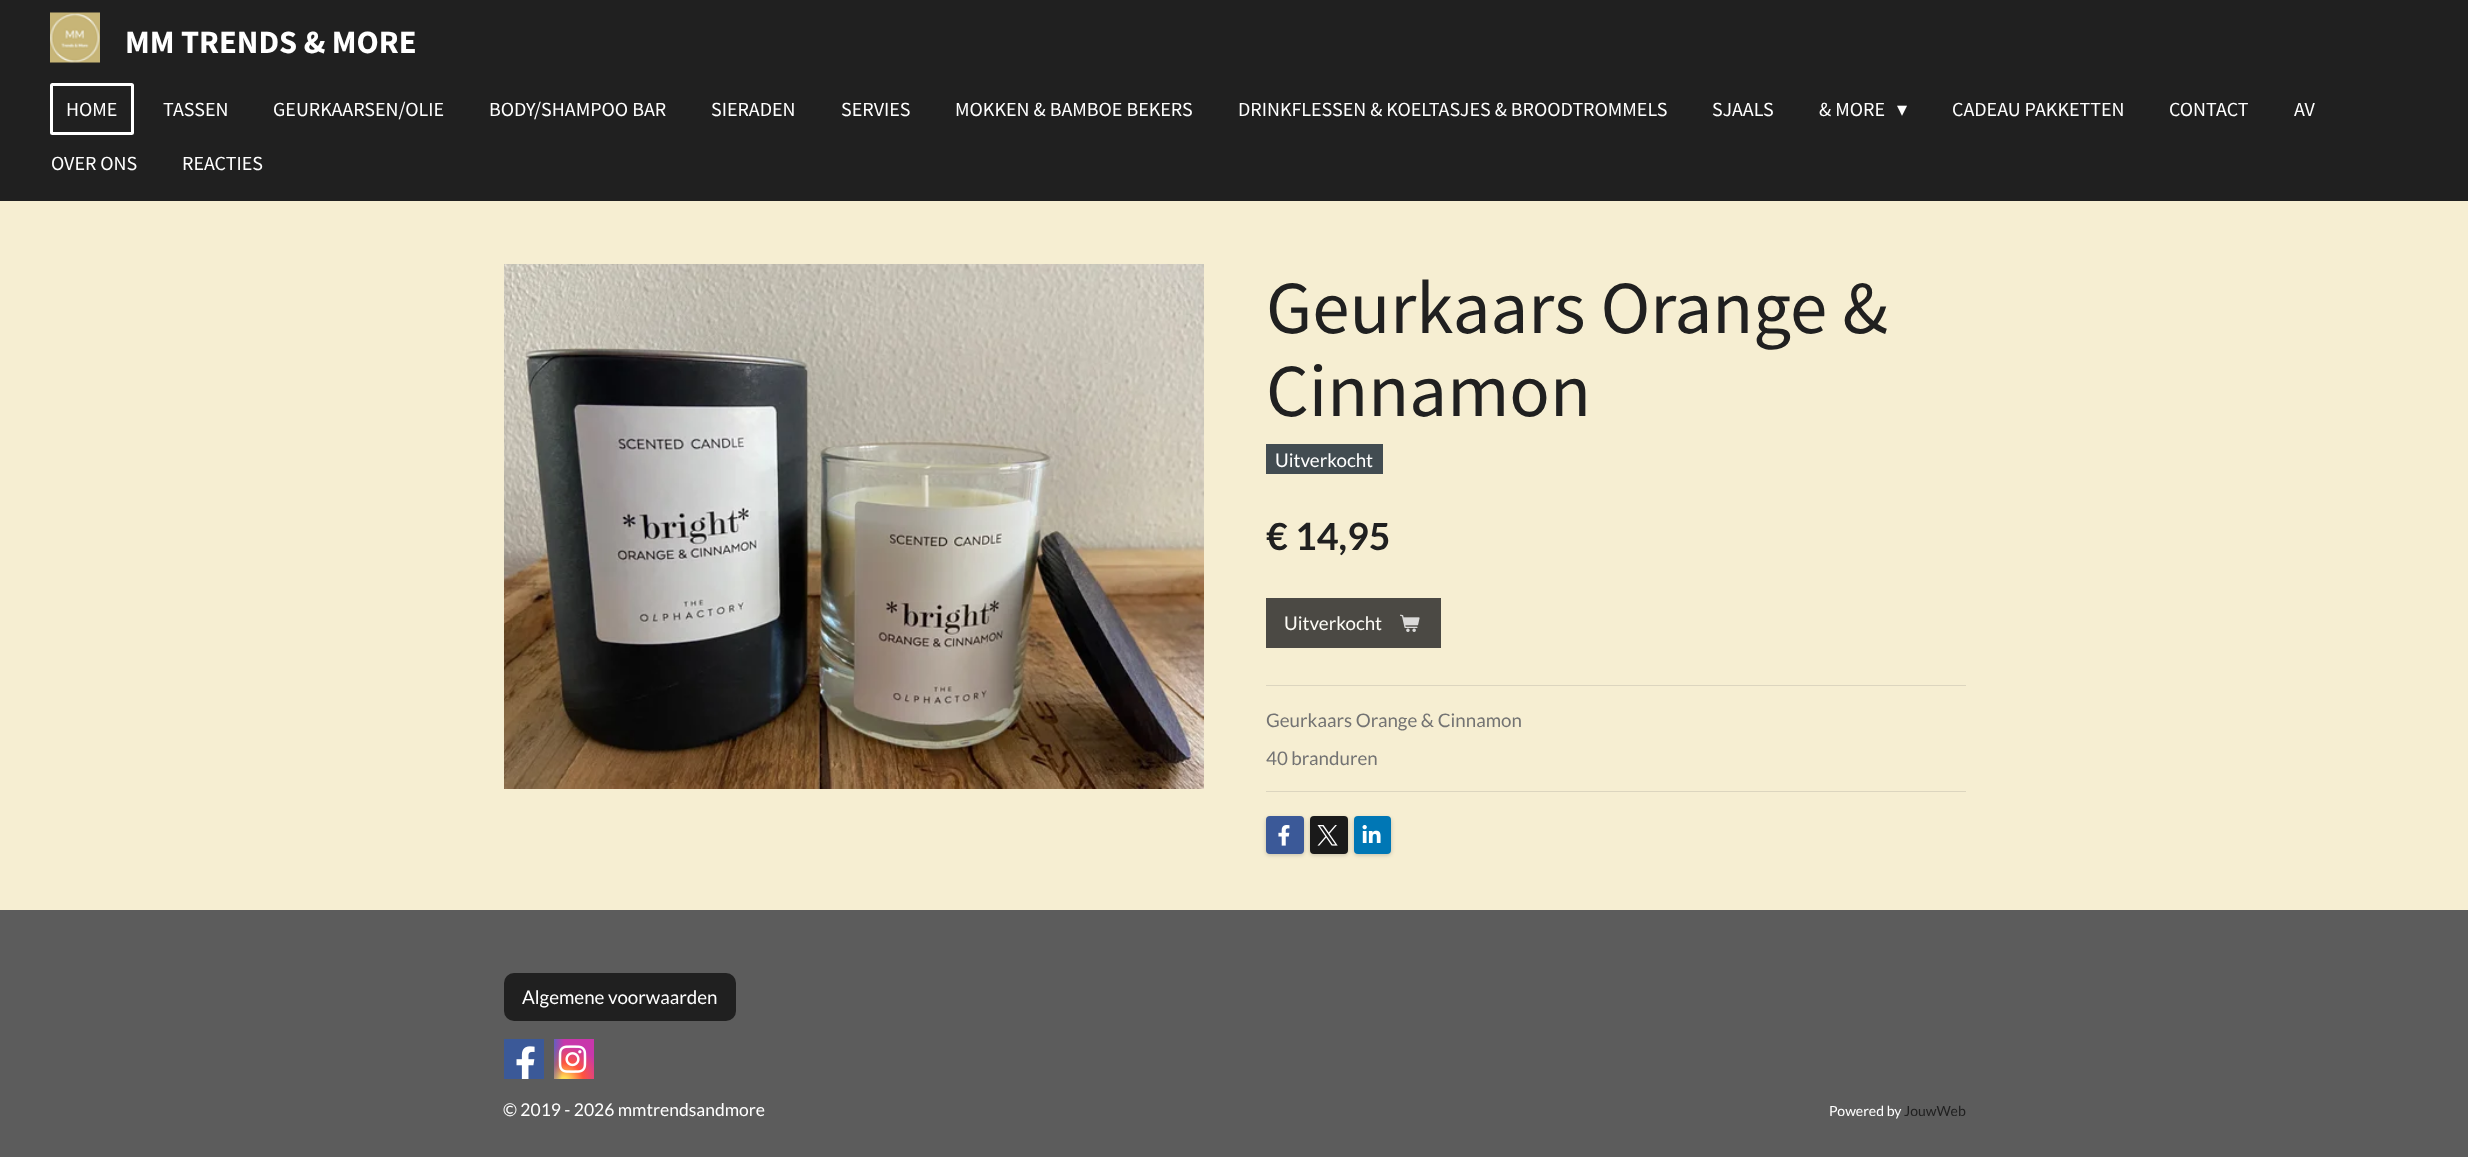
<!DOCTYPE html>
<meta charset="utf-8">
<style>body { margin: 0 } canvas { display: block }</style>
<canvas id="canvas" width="2468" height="1157"></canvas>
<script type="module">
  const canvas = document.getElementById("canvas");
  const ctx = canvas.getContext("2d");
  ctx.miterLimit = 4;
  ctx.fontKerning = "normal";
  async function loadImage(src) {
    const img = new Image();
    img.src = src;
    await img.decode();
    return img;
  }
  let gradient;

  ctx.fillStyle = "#f6eed2";
  ctx.fillRect(0, 0, 2468, 1157);
  ctx.fillStyle = "#202020";
  ctx.fillRect(0, 0, 2468, 201);
  ctx.drawImage(await loadImage("img1.png"), 50, 12, 50, 51);
  ctx.font = "bold 32.5px Source Sans Pro";
  ctx.fillStyle = "#ffffff";
  ctx.fillText("MM TRENDS & MORE", 125, 53);
  ctx.beginPath();
  ctx.roundRect(51.5, 84.5, 81, 49, 1);
  ctx.strokeStyle = "#ffffff";
  ctx.lineWidth = 3;
  ctx.stroke();
  ctx.font = "20px Source Sans Pro";
  ctx.fillText("HOME", 66, 116);
  ctx.fillText("TASSEN", 163, 116);
  ctx.fillText("GEURKAARSEN/OLIE", 273, 116);
  ctx.fillText("BODY/SHAMPOO BAR", 489, 116);
  ctx.fillText("SIERADEN", 711, 116);
  ctx.fillText("SERVIES", 841, 116);
  ctx.fillText("MOKKEN & BAMBOE BEKERS", 955, 116);
  ctx.fillText("DRINKFLESSEN & KOELTASJES & BROODTROMMELS", 1238, 116);
  ctx.fillText("SJAALS", 1712, 116);
  ctx.fillText("& MORE", 1819, 116);
  ctx.font = "20px DejaVu Sans";
  ctx.fillText("▾", 1897, 116);
  ctx.font = "20px Source Sans Pro";
  ctx.fillText("CADEAU PAKKETTEN", 1952, 116);
  ctx.fillText("CONTACT", 2169, 116);
  ctx.fillText("AV", 2294, 116);
  ctx.fillText("OVER ONS", 51, 170);
  ctx.fillText("REACTIES", 182, 170);
  ctx.drawImage(await loadImage("img2.png"), 504, 264, 700, 525);
  ctx.font = "75px Source Sans Pro";
  ctx.fillStyle = "#202020";
  ctx.fillText("Geurkaars Orange &", 1266, 333);
  ctx.fillText("Cinnamon", 1266, 416);
  ctx.fillStyle = "#424c51";
  ctx.fillRect(1266, 444, 117, 30);
  ctx.font = "18.75px Lato";
  ctx.fillStyle = "#ffffff";
  ctx.fillText("Uitverkocht", 1275, 467);
  ctx.font = "bold 37.5px Lato";
  ctx.fillStyle = "#202020";
  ctx.fillText("€ 14,95", 1266, 550);
  ctx.fillStyle = "#4b4944";
  ctx.fillRect(1266, 598, 175, 50);
  ctx.font = "18.75px Lato";
  ctx.fillStyle = "#fdfcf6";
  ctx.fillText("Uitverkocht", 1284, 630);
  ctx.drawImage(await loadImage("img3.png"), 1400, 614, 20, 18);
  ctx.fillStyle = "#dcd5bf";
  ctx.fillRect(1266, 685, 700, 1);
  ctx.fillStyle = "#737373";
  ctx.fillText("Geurkaars Orange & Cinnamon", 1266, 727);
  ctx.fillText("40 branduren", 1266, 765);
  ctx.fillStyle = "#dcd5bf";
  ctx.fillRect(1266, 791, 700, 1);
  ctx.fillStyle = "rgba(0, 0, 0, 0.2)";
  ctx.filter = "blur(2px)";
  ctx.beginPath();
  ctx.roundRect(1266, 818, 38, 37, 4);
  ctx.fill();
  ctx.filter = "none";
  ctx.fillStyle = "#3b5998";
  ctx.beginPath();
  ctx.roundRect(1266, 816, 38, 38, 4);
  ctx.fill();
  ctx.drawImage(await loadImage("img4.png"), 1278, 825, 12, 21);
  ctx.fillStyle = "rgba(0, 0, 0, 0.2)";
  ctx.filter = "blur(2px)";
  ctx.beginPath();
  ctx.roundRect(1310, 818, 38, 37, 4);
  ctx.fill();
  ctx.filter = "none";
  ctx.fillStyle = "#1a1a1a";
  ctx.beginPath();
  ctx.roundRect(1310, 816, 38, 38, 4);
  ctx.fill();
  ctx.drawImage(await loadImage("img5.png"), 1317, 825, 21, 21);
  ctx.fillStyle = "rgba(0, 0, 0, 0.2)";
  ctx.filter = "blur(2px)";
  ctx.beginPath();
  ctx.roundRect(1354, 818, 37, 37, 4);
  ctx.fill();
  ctx.filter = "none";
  ctx.fillStyle = "#0077b5";
  ctx.beginPath();
  ctx.roundRect(1354, 816, 37, 38, 4);
  ctx.fill();
  ctx.drawImage(await loadImage("img6.png"), 1362, 825, 19, 18);
  ctx.fillStyle = "#5c5c5c";
  ctx.fillRect(0, 910, 2468, 247);
  ctx.fillStyle = "#202020";
  ctx.beginPath();
  ctx.roundRect(504, 973, 232, 48, 10);
  ctx.fill();
  ctx.fillStyle = "#ffffff";
  ctx.fillText("Algemene voorwaarden", 522, 1004);
  ctx.fillStyle = "#3b5998";
  ctx.fillRect(504, 1039, 40, 40);
  ctx.drawImage(await loadImage("img7.png"), 516, 1046, 19, 33);
  gradient = ctx.createRadialGradient(564, 1171.08, 0, 564, 1171.08, 39);
  gradient.addColorStop(0, "#ffdd55");
  gradient.addColorStop(0.1, "#ffdd55");
  gradient.addColorStop(0.5, "#ff543e");
  gradient.addColorStop(1, "#c837ab");
  ctx.fillStyle = gradient;
  ctx.beginPath();
  ctx.rect(554, 1039, 40, 40);
  ctx.save();
  ctx.clip();
  ctx.scale(1, 36 / 39);
  ctx.fillRect(0, 0, 2468, 1254);
  ctx.restore();
  gradient = ctx.createRadialGradient(547, 246.03, 0, 547, 246.03, 17);
  gradient.addColorStop(0, "#3771c8");
  gradient.addColorStop(0.13, "#3771c8");
  gradient.addColorStop(1, "rgba(55, 113, 200, 0)");
  ctx.fillStyle = gradient;
  ctx.beginPath();
  ctx.rect(554, 1039, 10, 40);
  ctx.save();
  ctx.clip();
  ctx.scale(1, 72 / 17);
  ctx.fillRect(0, 0, 2468, 274);
  ctx.restore();
  ctx.drawImage(await loadImage("img8.png"), 558, 1045, 29, 28);
  ctx.font = "17.5px Lato";
  ctx.fillStyle = "#ffffff";
  ctx.fillText("© 2019 - 2026 mmtrendsandmore", 503, 1116);
  ctx.font = "14px Lato";
  ctx.fillText("Powered by", 1829, 1116);
  ctx.fillStyle = "#202020";
  ctx.fillText("JouwWeb", 1904, 1116);
</script>
